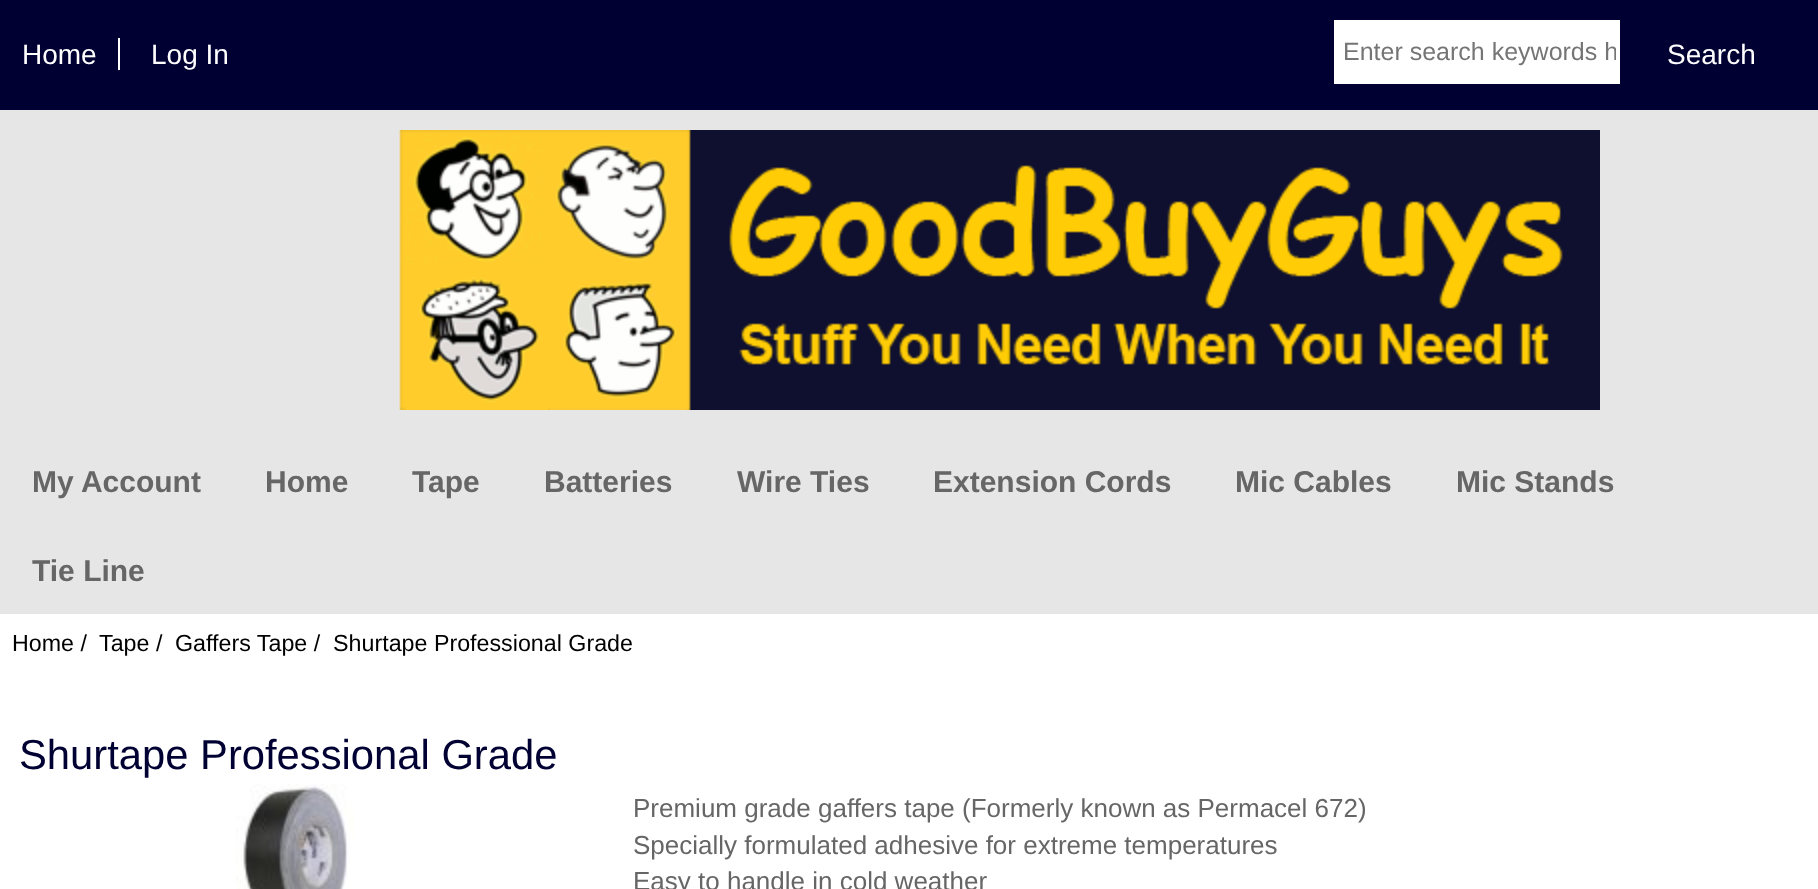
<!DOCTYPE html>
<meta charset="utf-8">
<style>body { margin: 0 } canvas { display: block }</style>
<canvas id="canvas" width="1818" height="889"></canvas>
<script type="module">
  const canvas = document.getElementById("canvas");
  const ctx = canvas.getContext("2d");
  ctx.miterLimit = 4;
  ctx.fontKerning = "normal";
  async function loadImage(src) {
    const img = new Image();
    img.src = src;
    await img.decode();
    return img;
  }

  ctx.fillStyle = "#ffffff";
  ctx.fillRect(0, 0, 1818, 889);
  ctx.fillStyle = "#000033";
  ctx.fillRect(0, 0, 1818, 110);
  ctx.font = "28px Liberation Sans";
  ctx.fillStyle = "#ffffff";
  ctx.fillText("Home", 22, 64);
  ctx.fillRect(118, 38, 2, 32);
  ctx.fillText("Log In", 151, 64);
  ctx.fillRect(1334, 20, 286, 64);
  ctx.save();
  ctx.beginPath();
  ctx.rect(1344, 38, 272, 28);
  ctx.clip();
  ctx.font = "25px Liberation Sans";
  ctx.fillStyle = "#757575";
  ctx.fillText("Enter search keywords h", 1343, 60);
  ctx.restore();
  ctx.fillText("Search", 1667, 64);
  ctx.fillStyle = "#e6e6e6";
  ctx.fillRect(0, 110, 1818, 504);
  ctx.drawImage(await loadImage("img1.png"), 399, 130, 1201, 280);
  ctx.font = "bold 30px Liberation Sans";
  ctx.fillStyle = "#666666";
  ctx.fillText("My Account", 32, 492);
  ctx.fillText("Home", 265, 492);
  ctx.fillText("Tape", 412, 492);
  ctx.fillText("Batteries", 544, 492);
  ctx.fillText("Wire Ties", 737, 492);
  ctx.fillText("Extension Cords", 933, 492);
  ctx.fillText("Mic Cables", 1235, 492);
  ctx.fillText("Mic Stands", 1456, 492);
  ctx.fillText("Tie Line", 32, 581);
  ctx.font = "23.25px Liberation Sans";
  ctx.fillStyle = "#000000";
  ctx.fillText("Home /", 12, 651);
  ctx.fillText("Tape /", 99, 651);
  ctx.fillText("Gaffers Tape /  Shurtape Professional Grade", 175, 651);
  ctx.font = "41.75px Liberation Sans";
  ctx.fillStyle = "#000033";
  ctx.fillText("Shurtape Professional Grade", 19, 769);
  ctx.drawImage(await loadImage("img2.png"), 236, 784, 118, 105);
  ctx.font = "26px Liberation Sans";
  ctx.fillStyle = "#666666";
  ctx.fillText("Premium grade gaffers tape (Formerly known as Permacel 672)", 633, 817);
  ctx.fillText("Specially formulated adhesive for extreme temperatures", 633, 854);
  ctx.fillText("Easy to handle in cold weather", 633, 890);
</script>
